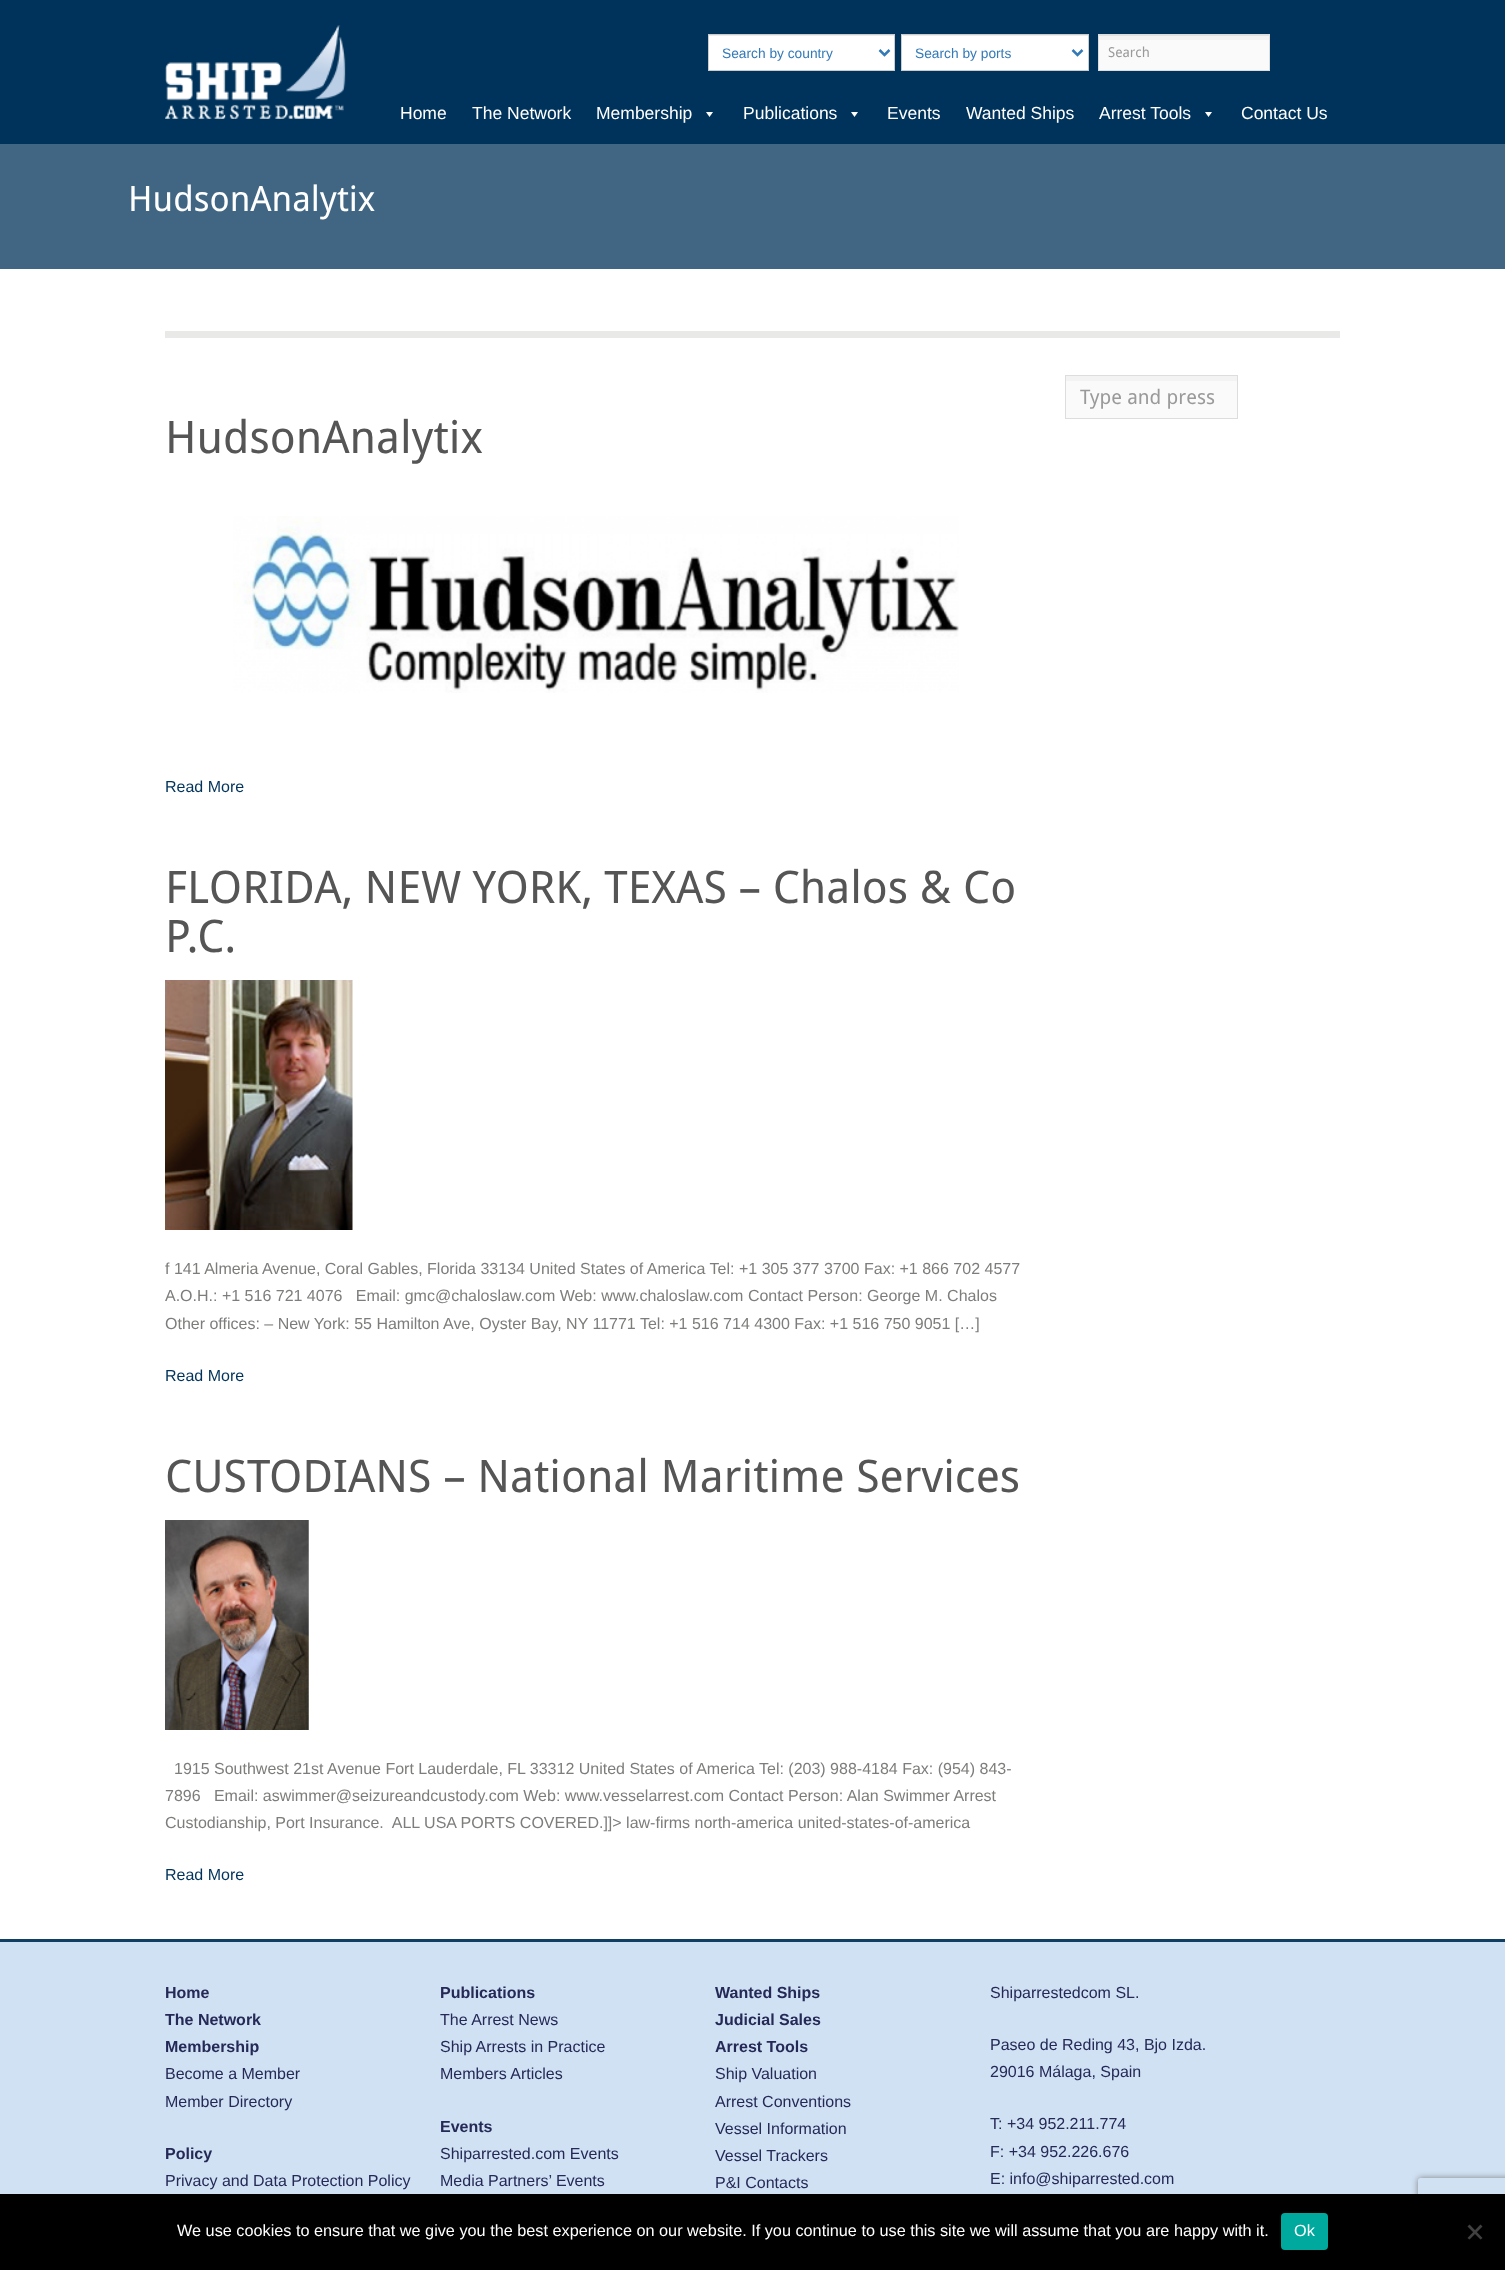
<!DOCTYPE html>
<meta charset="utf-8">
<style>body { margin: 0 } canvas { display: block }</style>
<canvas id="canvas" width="1505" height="2270"></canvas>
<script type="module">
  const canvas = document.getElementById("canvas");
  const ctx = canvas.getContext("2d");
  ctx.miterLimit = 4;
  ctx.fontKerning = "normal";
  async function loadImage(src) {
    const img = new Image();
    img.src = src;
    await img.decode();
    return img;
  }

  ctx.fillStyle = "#ffffff";
  ctx.fillRect(0, 0, 1505, 2270);
  ctx.fillStyle = "#00335b";
  ctx.fillRect(0, 0, 1505, 144);
  ctx.drawImage(await loadImage("img1.png"), 165, 25, 181, 94);
  ctx.fillStyle = "#ffffff";
  ctx.fillRect(709, 36, 185, 34);
  ctx.fillStyle = "#ececec";
  ctx.fillRect(709, 35, 185, 1);
  ctx.strokeStyle = "#cccccc";
  ctx.strokeRect(708.5, 34.5, 186, 36);
  ctx.beginPath();
  ctx.moveTo(879.5, 50);
  ctx.lineTo(884.5, 55);
  ctx.lineTo(889.5, 50);
  ctx.strokeStyle = "#337ab7";
  ctx.lineWidth = 2.5;
  ctx.stroke();
  ctx.font = "13.75px Liberation Sans";
  ctx.fillStyle = "#337ab7";
  ctx.fillText("Search by country", 722, 58);
  ctx.fillStyle = "#ffffff";
  ctx.fillRect(902, 35, 186, 35);
  ctx.fillStyle = "#ececec";
  ctx.fillRect(903, 35, 185, 1);
  ctx.strokeStyle = "#cccccc";
  ctx.lineWidth = 1;
  ctx.strokeRect(901.5, 34.5, 187, 36);
  ctx.beginPath();
  ctx.moveTo(1072.5, 50);
  ctx.lineTo(1077.5, 55);
  ctx.lineTo(1082.5, 50);
  ctx.strokeStyle = "#337ab7";
  ctx.lineWidth = 2.5;
  ctx.stroke();
  ctx.fillStyle = "#337ab7";
  ctx.fillText("Search by ports", 915, 58);
  ctx.fillStyle = "#fafafa";
  ctx.fillRect(1099, 40, 170, 30);
  ctx.fillStyle = "#f3f3f3";
  ctx.fillRect(1098, 36, 172, 4);
  ctx.fillStyle = "#e1e1e1";
  ctx.fillRect(1099, 35, 170, 1);
  ctx.strokeStyle = "#dddddd";
  ctx.lineWidth = 1;
  ctx.strokeRect(1098.5, 34.5, 171, 36);
  ctx.font = "13.75px Droid Sans";
  ctx.fillStyle = "#9a9a9a";
  ctx.fillText("Search", 1108, 57);
  ctx.font = "17.5px Liberation Sans";
  ctx.fillStyle = "#ffffff";
  ctx.fillText("Home", 400, 119);
  ctx.fillText("The Network", 472, 119);
  ctx.fillText("Membership", 596, 119);
  ctx.beginPath();
  ctx.moveTo(713, 112);
  ctx.lineTo(709.5, 117);
  ctx.lineTo(706, 112);
  ctx.closePath();
  ctx.fill();
  ctx.fillText("Publications", 743, 119);
  ctx.beginPath();
  ctx.moveTo(858, 112);
  ctx.lineTo(854.5, 117);
  ctx.lineTo(851, 112);
  ctx.closePath();
  ctx.fill();
  ctx.fillText("Events", 887, 119);
  ctx.fillText("Wanted Ships", 966, 119);
  ctx.fillText("Arrest Tools", 1099, 119);
  ctx.beginPath();
  ctx.moveTo(1212, 112);
  ctx.lineTo(1208.5, 117);
  ctx.lineTo(1205, 112);
  ctx.closePath();
  ctx.fill();
  ctx.fillText("Contact Us", 1241, 119);
  ctx.fillStyle = "#406684";
  ctx.fillRect(0, 144, 1505, 125);
  ctx.font = "35px Droid Sans";
  ctx.fillStyle = "#ffffff";
  ctx.fillText("HudsonAnalytix", 128, 211);
  ctx.fillStyle = "#e9e9e8";
  ctx.fillRect(165, 331, 1175, 7);
  ctx.fillStyle = "#fafafa";
  ctx.fillRect(1066, 381, 171, 37);
  ctx.fillStyle = "#f3f3f3";
  ctx.fillRect(1065, 376, 172, 5);
  ctx.strokeRect(1065.5, 375.5, 172, 43);
  ctx.font = "20px Droid Sans";
  ctx.fillStyle = "#9a9a9a";
  ctx.fillText("Type and press", 1080, 404);
  ctx.font = "45px Droid Sans";
  ctx.fillStyle = "#555555";
  ctx.fillText("HudsonAnalytix", 165, 453);
  ctx.drawImage(await loadImage("img2.png"), 233, 516, 726, 177);
  ctx.font = "16px Liberation Sans";
  ctx.fillStyle = "#00335b";
  ctx.fillText("Read More", 165, 792);
  ctx.font = "45px Droid Sans";
  ctx.fillStyle = "#555555";
  ctx.fillText("FLORIDA, NEW YORK, TEXAS – Chalos & Co", 165, 903);
  ctx.fillText("P.C.", 165, 952);
  ctx.drawImage(await loadImage("img3.png"), 165, 980, 188, 250);
  ctx.font = "16px Liberation Sans";
  ctx.fillStyle = "#7d7d7b";
  ctx.fillText("f 141 Almeria Avenue, Coral Gables, Florida 33134 United States of America Tel: +1 305 377 3700 Fax: +1 866 702 4577", 165, 1274);
  ctx.fillText("A.O.H.: +1 516 721 4076   Email: gmc@chaloslaw.com Web: www.chaloslaw.com Contact Person: George M. Chalos", 165, 1301);
  ctx.fillText("Other offices: – New York: 55 Hamilton Ave, Oyster Bay, NY 11771 Tel: +1 516 714 4300 Fax: +1 516 750 9051 […]", 165, 1329);
  ctx.fillStyle = "#00335b";
  ctx.fillText("Read More", 165, 1381);
  ctx.font = "45px Droid Sans";
  ctx.fillStyle = "#555555";
  ctx.fillText("CUSTODIANS – National Maritime Services", 165, 1492);
  ctx.drawImage(await loadImage("img4.png"), 165, 1520, 144, 210);
  ctx.font = "16px Liberation Sans";
  ctx.fillStyle = "#7d7d7b";
  ctx.fillText("1915 Southwest 21st Avenue Fort Lauderdale, FL 33312 United States of America Tel: (203) 988-4184 Fax: (954) 843-", 174, 1774);
  ctx.fillText("7896   Email: aswimmer@seizureandcustody.com Web: www.vesselarrest.com Contact Person: Alan Swimmer Arrest", 165, 1801);
  ctx.fillText("Custodianship, Port Insurance.  ALL USA PORTS COVERED.]]> law-firms north-america united-states-of-america", 165, 1828);
  ctx.fillStyle = "#00335b";
  ctx.fillText("Read More", 165, 1880);
  ctx.fillStyle = "#d0e1f4";
  ctx.fillRect(0, 1942, 1505, 252);
  ctx.fillStyle = "#113f63";
  ctx.fillRect(0, 1939, 1505, 3);
  ctx.font = "bold 16px Liberation Sans";
  ctx.fillStyle = "#252956";
  ctx.fillText("Home", 165, 1998);
  ctx.fillText("The Network", 165, 2025);
  ctx.fillText("Membership", 165, 2052);
  ctx.font = "16px Liberation Sans";
  ctx.fillText("Become a Member", 165, 2079);
  ctx.fillText("Member Directory", 165, 2107);
  ctx.font = "bold 16px Liberation Sans";
  ctx.fillText("Policy", 165, 2159);
  ctx.font = "16px Liberation Sans";
  ctx.fillText("Privacy and Data Protection Policy", 165, 2186);
  ctx.font = "bold 16px Liberation Sans";
  ctx.fillText("Publications", 440, 1998);
  ctx.font = "16px Liberation Sans";
  ctx.fillText("The Arrest News", 440, 2025);
  ctx.fillText("Ship Arrests in Practice", 440, 2052);
  ctx.fillText("Members Articles", 440, 2079);
  ctx.font = "bold 16px Liberation Sans";
  ctx.fillText("Events", 440, 2132);
  ctx.font = "16px Liberation Sans";
  ctx.fillText("Shiparrested.com Events", 440, 2159);
  ctx.fillText("Media Partners’ Events", 440, 2186);
  ctx.font = "bold 16px Liberation Sans";
  ctx.fillText("Wanted Ships", 715, 1998);
  ctx.fillText("Judicial Sales", 715, 2025);
  ctx.fillText("Arrest Tools", 715, 2052);
  ctx.font = "16px Liberation Sans";
  ctx.fillText("Ship Valuation", 715, 2079);
  ctx.fillText("Arrest Conventions", 715, 2107);
  ctx.fillText("Vessel Information", 715, 2134);
  ctx.fillText("Vessel Trackers", 715, 2161);
  ctx.fillText("P&I Contacts", 715, 2188);
  ctx.fillText("Shiparrestedcom SL.", 990, 1998);
  ctx.fillText("Paseo de Reding 43, Bjo Izda.", 990, 2050);
  ctx.fillText("29016 Málaga, Spain", 990, 2077);
  ctx.fillText("T: +34 952.211.774", 990, 2129);
  ctx.fillText("F: +34 952.226.676", 990, 2157);
  ctx.fillText("E: info@shiparrested.com", 990, 2184);
  ctx.save();
  ctx.beginPath();
  ctx.moveTo(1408, 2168);
  ctx.lineTo(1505, 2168);
  ctx.lineTo(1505, 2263);
  ctx.lineTo(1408, 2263);
  ctx.closePath();
  ctx.moveTo(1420.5, 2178);
  ctx.lineTo(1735.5, 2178);
  ctx.bezierCurveTo(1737, 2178, 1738, 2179, 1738, 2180.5);
  ctx.lineTo(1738, 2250.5);
  ctx.bezierCurveTo(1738, 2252, 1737, 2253, 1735.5, 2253);
  ctx.lineTo(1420.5, 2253);
  ctx.bezierCurveTo(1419, 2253, 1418, 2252, 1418, 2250.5);
  ctx.lineTo(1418, 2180.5);
  ctx.bezierCurveTo(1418, 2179, 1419, 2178, 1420.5, 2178);
  ctx.closePath();
  ctx.clip("evenodd");
  ctx.fillStyle = "#808080";
  ctx.filter = "blur(3px)";
  ctx.beginPath();
  ctx.roundRect(1418, 2178, 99, 75, 2.5);
  ctx.fill();
  ctx.filter = "none";
  ctx.restore();
  ctx.fillStyle = "#000000";
  ctx.fillRect(0, 2194, 1505, 76);
  ctx.font = "16.25px Liberation Sans";
  ctx.fillStyle = "#ffffff";
  ctx.fillText("We use cookies to ensure that we give you the best experience on our website. If you continue to use this site we will assume that you are happy with it.", 177, 2236);
  ctx.fillStyle = "#00a99d";
  ctx.beginPath();
  ctx.roundRect(1281, 2213, 47, 37, 4);
  ctx.fill();
  ctx.fillStyle = "#ffffff";
  ctx.fillText("Ok", 1294, 2236);
  ctx.fillStyle = "#404040";
  ctx.beginPath();
  ctx.moveTo(1480.5, 2224.5);
  ctx.lineTo(1482.5, 2226.5);
  ctx.lineTo(1469.5, 2239.5);
  ctx.lineTo(1467.5, 2238);
  ctx.closePath();
  ctx.fill();
  ctx.beginPath();
  ctx.moveTo(1467.5, 2226.5);
  ctx.lineTo(1469.5, 2224.5);
  ctx.lineTo(1482.5, 2238);
  ctx.lineTo(1480.5, 2239.5);
  ctx.closePath();
  ctx.fill();
</script>
